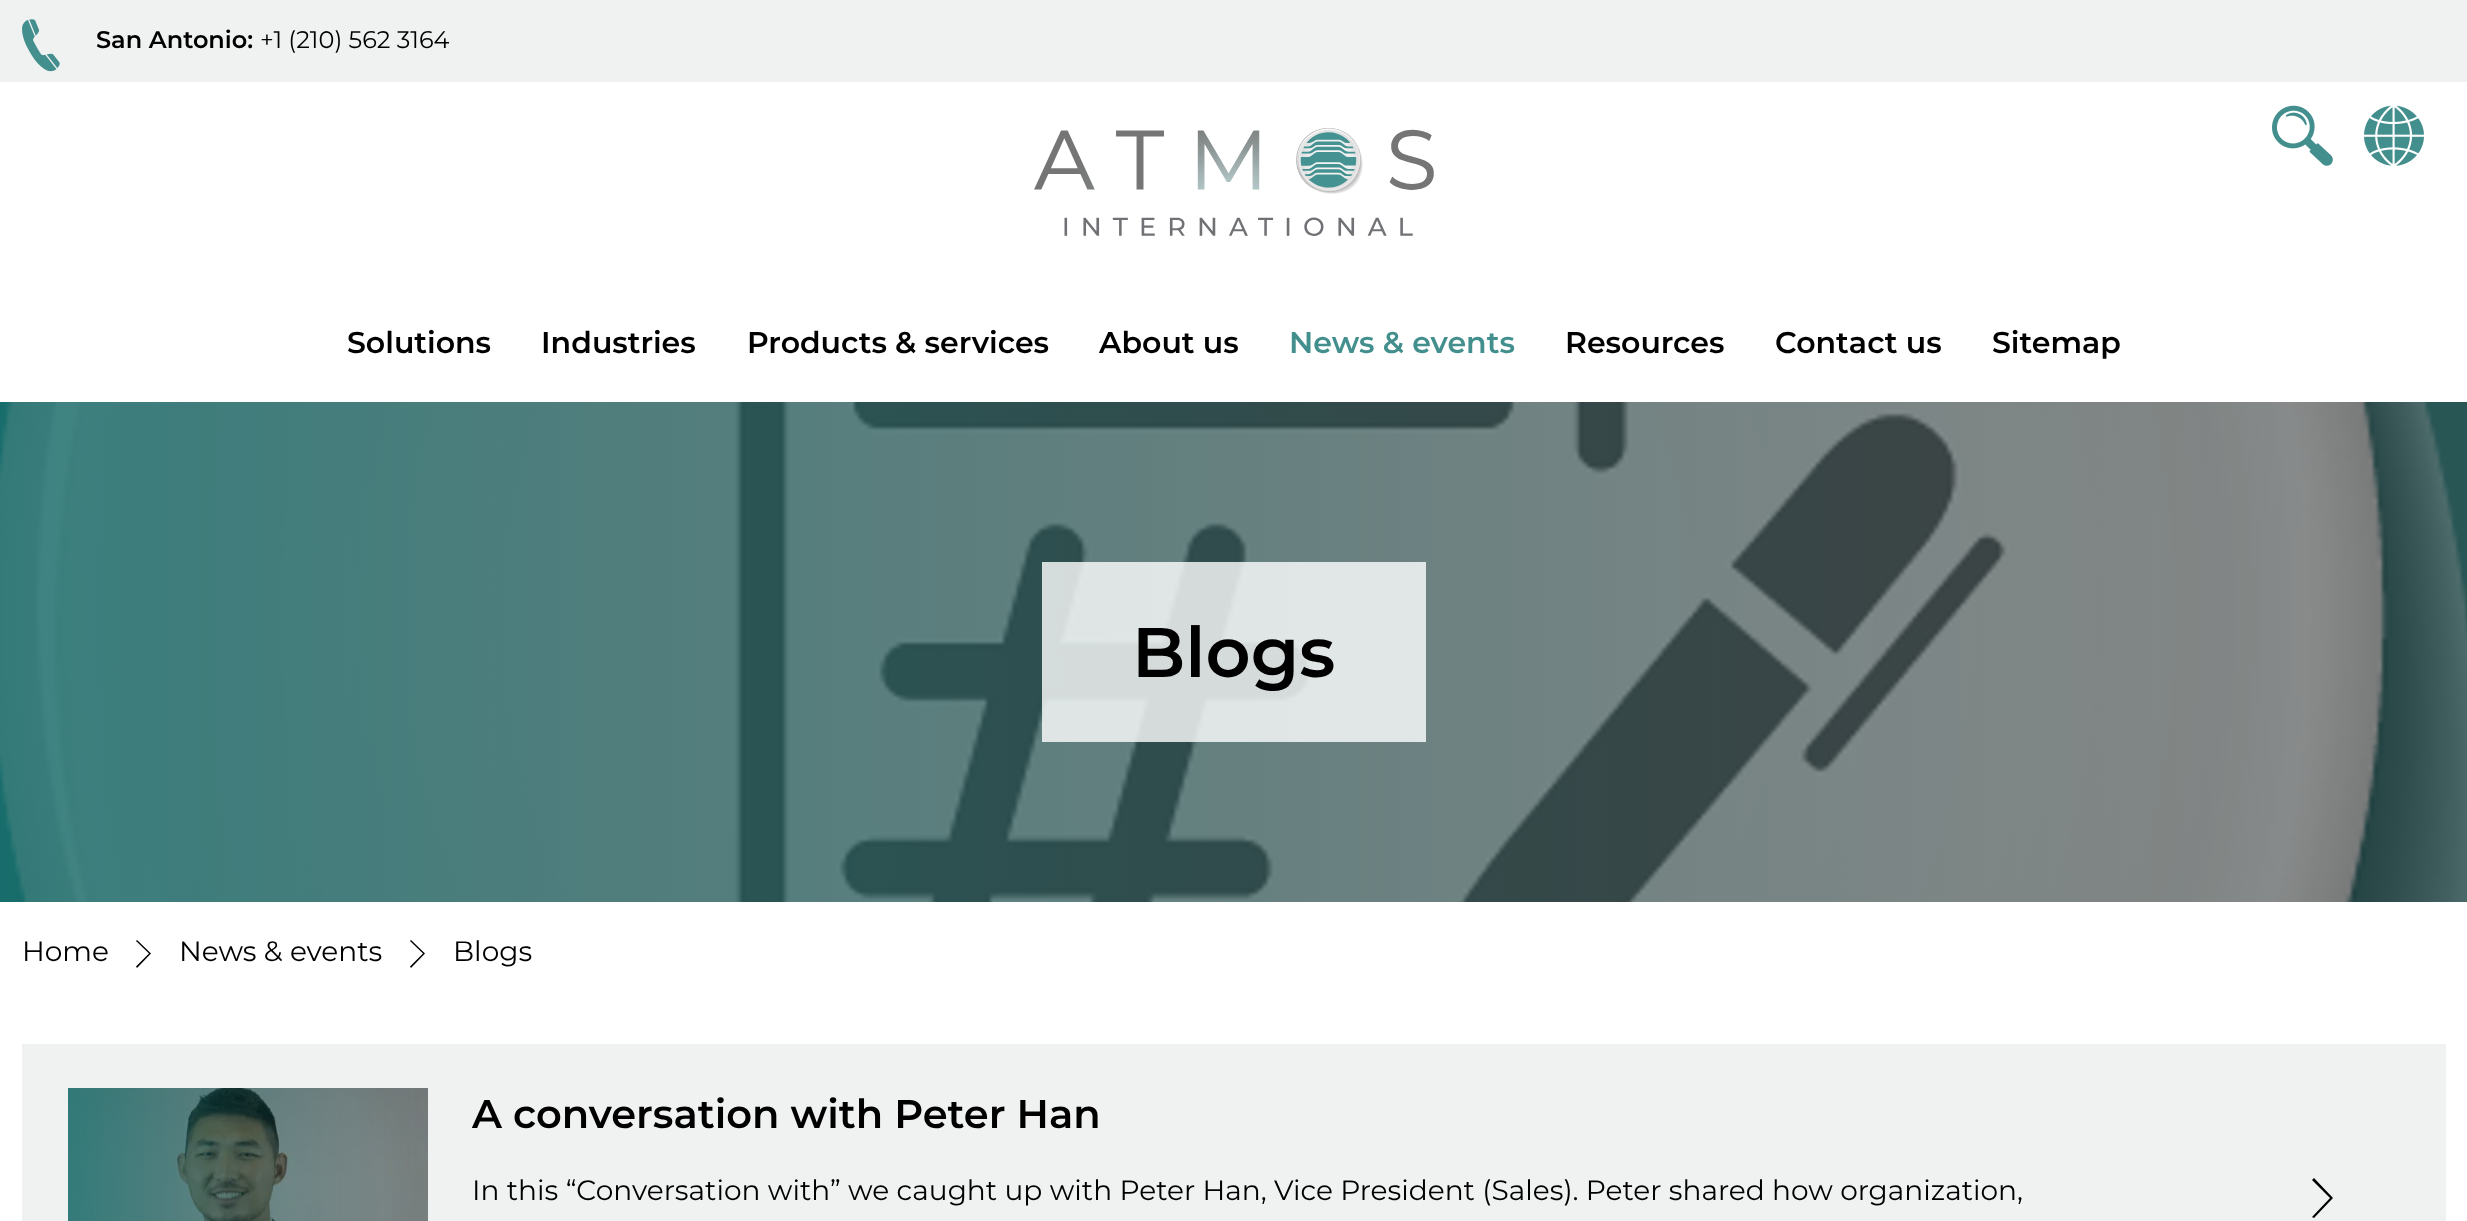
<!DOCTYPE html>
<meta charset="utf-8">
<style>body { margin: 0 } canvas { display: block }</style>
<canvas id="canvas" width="2467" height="1221"></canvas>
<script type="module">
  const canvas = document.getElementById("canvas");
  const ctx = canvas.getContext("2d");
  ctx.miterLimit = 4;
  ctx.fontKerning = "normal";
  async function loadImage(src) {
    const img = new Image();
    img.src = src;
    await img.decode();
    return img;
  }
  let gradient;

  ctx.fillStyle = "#ffffff";
  ctx.fillRect(0, 0, 2467, 1221);
  ctx.fillStyle = "#f0f1f1";
  ctx.fillRect(0, 0, 2467, 82);
  ctx.drawImage(await loadImage("img1.png"), 22, 19, 38, 53);
  ctx.font = "600 24px Montserrat";
  ctx.fillStyle = "#000000";
  ctx.fillText("San Antonio:", 96, 48);
  ctx.font = "24px Montserrat";
  ctx.fillText("+1 (210) 562 3164", 260, 48);
  ctx.drawImage(await loadImage("img2.png"), 1034, 128, 400, 108);
  ctx.drawImage(await loadImage("img3.png"), 2272, 105, 61, 61);
  ctx.drawImage(await loadImage("img4.png"), 2364, 105, 60, 61);
  ctx.font = "600 30px Montserrat";
  ctx.fillText("Solutions", 347, 353);
  ctx.fillText("Industries", 541, 353);
  ctx.fillText("Products & services", 747, 353);
  ctx.fillText("About us", 1099, 353);
  ctx.fillStyle = "#438f8e";
  ctx.fillText("News & events", 1289, 353);
  ctx.fillStyle = "#000000";
  ctx.fillText("Resources", 1565, 353);
  ctx.fillText("Contact us", 1775, 353);
  ctx.fillText("Sitemap", 1992, 353);
  ctx.fillStyle = "#438f8e";
  ctx.fillRect(0, 402, 2467, 500);
  ctx.drawImage(await loadImage("img5.png"), 0, 402, 2467, 500);
  gradient = ctx.createLinearGradient(0, 652, 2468, 652);
  gradient.addColorStop(0, "rgba(13, 101, 99, 0.8)");
  gradient.addColorStop(1, "rgba(0, 0, 0, 0.4)");
  ctx.fillStyle = gradient;
  ctx.fillRect(0, 402, 2467, 500);
  ctx.fillStyle = "rgba(255, 255, 255, 0.8)";
  ctx.fillRect(1042, 562, 384, 180);
  ctx.font = "600 70px Montserrat";
  ctx.fillStyle = "#000000";
  ctx.fillText("Blogs", 1132, 677);
  ctx.font = "28px Montserrat";
  ctx.fillText("Home", 22, 961);
  ctx.beginPath();
  ctx.moveTo(137, 968);
  ctx.lineTo(136, 966.5);
  ctx.lineTo(149, 953.5);
  ctx.lineTo(136, 941);
  ctx.lineTo(137, 940);
  ctx.lineTo(151, 953.5);
  ctx.closePath();
  ctx.fill();
  ctx.fillText("News & events", 179, 961);
  ctx.beginPath();
  ctx.moveTo(411, 968);
  ctx.lineTo(410, 966.5);
  ctx.lineTo(423, 953.5);
  ctx.lineTo(410, 941);
  ctx.lineTo(411, 940);
  ctx.lineTo(425, 953.5);
  ctx.closePath();
  ctx.fill();
  ctx.fillText("Blogs", 453, 961);
  ctx.fillStyle = "#f0f1f1";
  ctx.fillRect(22, 1044, 2424, 177);
  ctx.drawImage(await loadImage("img6.png"), 68, 1088, 360, 133);
  ctx.font = "600 40px Montserrat";
  ctx.fillStyle = "#000000";
  ctx.fillText("A conversation with Peter Han", 472, 1128);
  ctx.font = "28px Montserrat";
  ctx.fillText("In this “Conversation with” we caught up with Peter Han, Vice President (Sales). Peter shared how organization,", 472, 1200);
  ctx.beginPath();
  ctx.moveTo(2314, 1218);
  ctx.lineTo(2312, 1217);
  ctx.lineTo(2330, 1198);
  ctx.lineTo(2312, 1180);
  ctx.lineTo(2314, 1178);
  ctx.lineTo(2333, 1198);
  ctx.closePath();
  ctx.fill();
</script>
